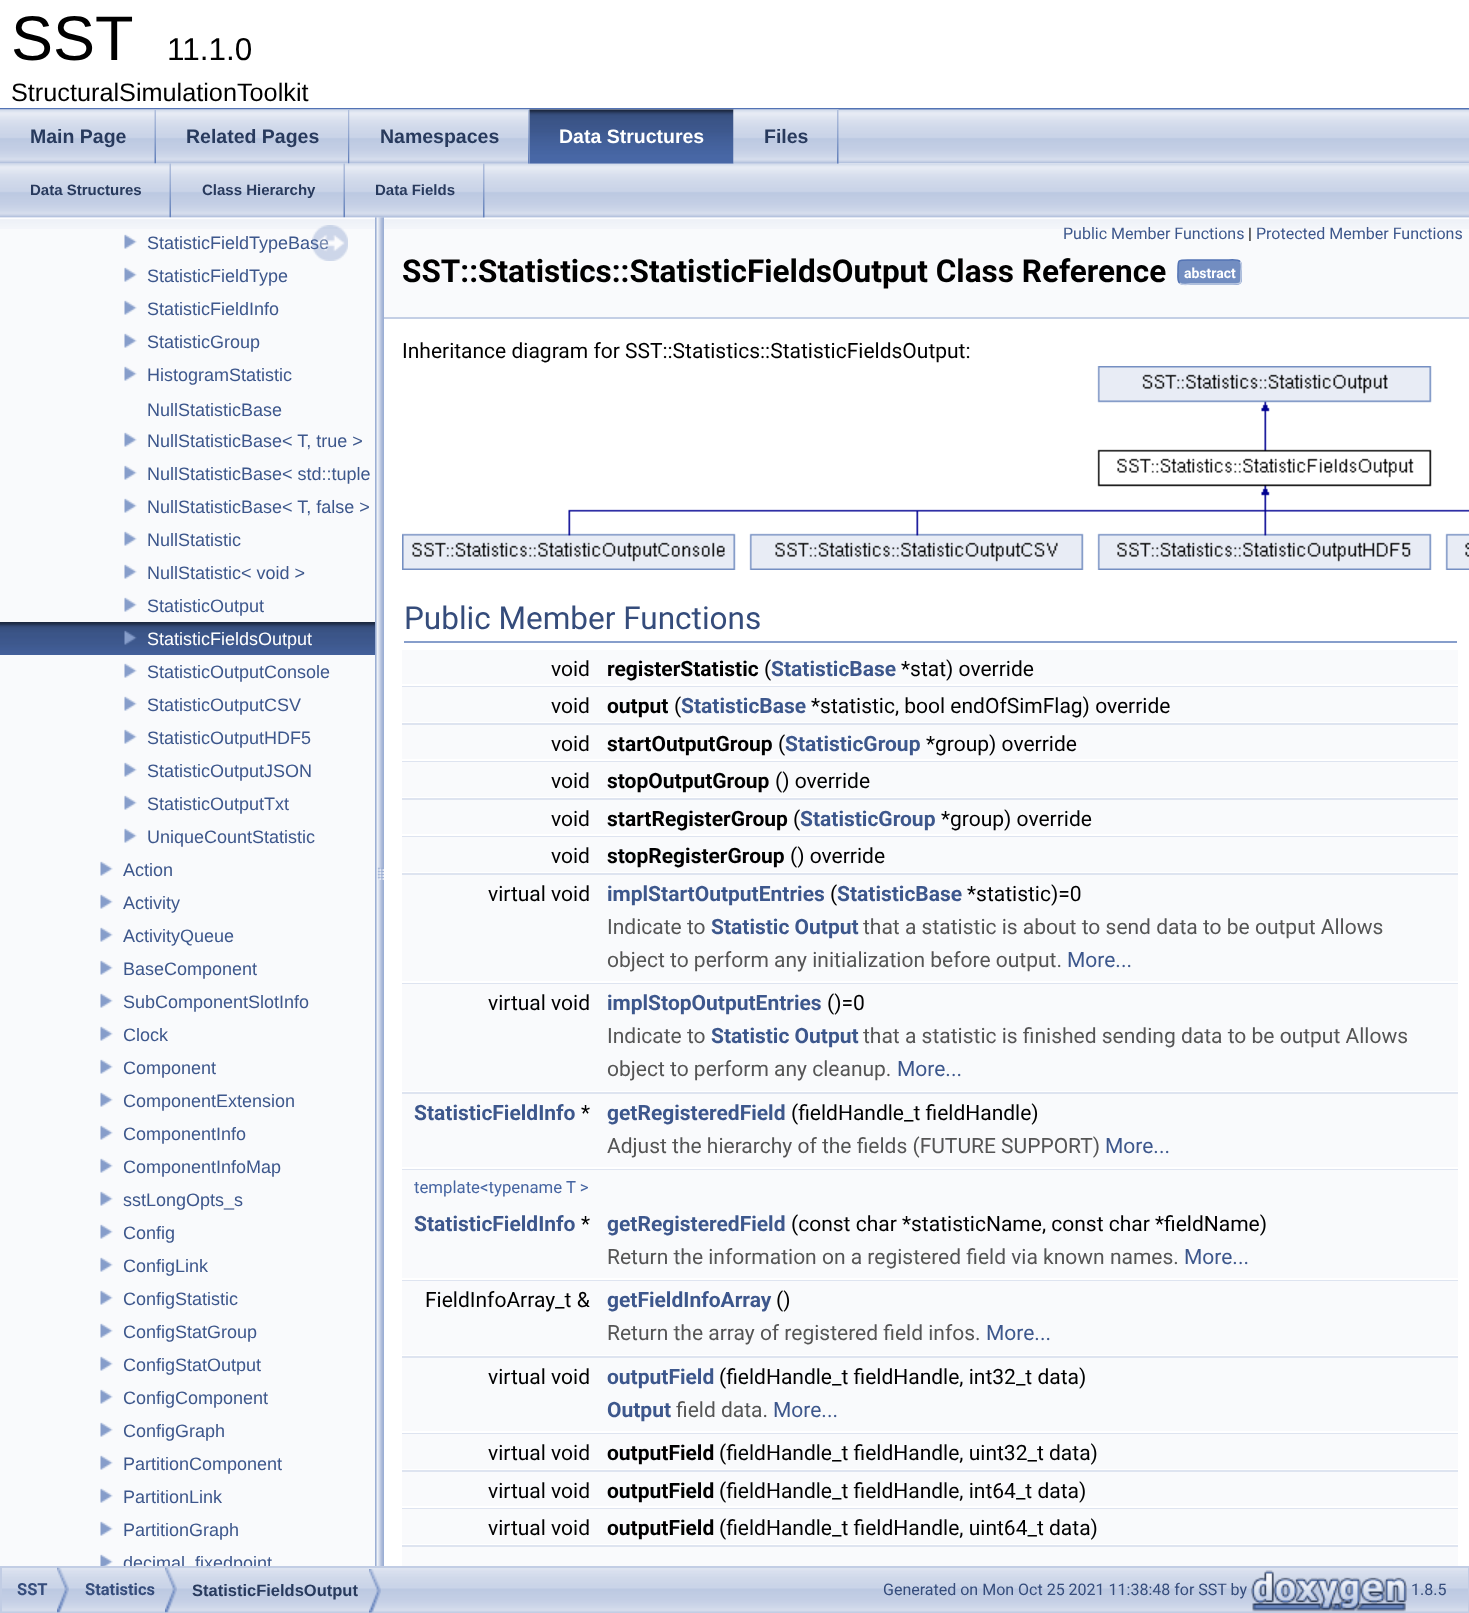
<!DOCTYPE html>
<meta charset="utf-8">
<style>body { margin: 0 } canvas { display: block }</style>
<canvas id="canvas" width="1469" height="1613"></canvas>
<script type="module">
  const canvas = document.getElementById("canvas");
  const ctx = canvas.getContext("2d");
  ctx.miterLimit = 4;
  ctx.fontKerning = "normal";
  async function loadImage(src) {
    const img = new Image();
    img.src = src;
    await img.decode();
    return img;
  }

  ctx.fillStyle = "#ffffff";
  ctx.fillRect(0, 0, 1469, 1613);
  ctx.fillStyle = "#5373b4";
  ctx.fillRect(0, 108, 1469, 2);
  ctx.font = "63px Liberation Sans";
  ctx.fillStyle = "#000000";
  ctx.fillText("SST", 11, 60);
  ctx.font = "31.5px Liberation Sans";
  ctx.fillText("11.1.0", 167, 60);
  ctx.font = "25.25px Liberation Sans";
  ctx.fillText("StructuralSimulationToolkit", 11, 101);
  ctx.drawImage(await loadImage("img1.png"), 0, 109, 1469, 55);
  ctx.drawImage(await loadImage("img2.png"), 0, 109, 156, 55);
  ctx.drawImage(await loadImage("img3.png"), 154, 110, 2, 54);
  ctx.font = "bold 19.5px Liberation Sans";
  ctx.fillStyle = "#283a5d";
  ctx.fillText("Main Page", 30, 143);
  ctx.drawImage(await loadImage("img4.png"), 156, 109, 194, 55);
  ctx.drawImage(await loadImage("img5.png"), 348, 110, 2, 54);
  ctx.fillText("Related Pages", 186, 143);
  ctx.drawImage(await loadImage("img6.png"), 349, 109, 181, 55);
  ctx.drawImage(await loadImage("img5.png"), 528, 110, 2, 54);
  ctx.fillText("Namespaces", 380, 143);
  ctx.drawImage(await loadImage("img7.png"), 529, 109, 205, 55);
  ctx.drawImage(await loadImage("img8.png"), 529, 109, 205, 55);
  ctx.fillStyle = "#ffffff";
  ctx.fillText("Data Structures", 559, 143);
  ctx.drawImage(await loadImage("img9.png"), 733, 109, 106, 55);
  ctx.drawImage(await loadImage("img5.png"), 837, 110, 2, 54);
  ctx.fillStyle = "#283a5d";
  ctx.fillText("Files", 764, 143);
  ctx.drawImage(await loadImage("img10.png"), 0, 164, 1469, 54);
  ctx.drawImage(await loadImage("img11.png"), 0, 163, 171, 55);
  ctx.drawImage(await loadImage("img12.png"), 169, 163, 2, 55);
  ctx.font = "bold 15px Liberation Sans";
  ctx.fillText("Data Structures", 30, 195);
  ctx.drawImage(await loadImage("img13.png"), 171, 163, 174, 55);
  ctx.drawImage(await loadImage("img12.png"), 343, 163, 2, 55);
  ctx.fillText("Class Hierarchy", 202, 195);
  ctx.drawImage(await loadImage("img14.png"), 345, 163, 140, 55);
  ctx.drawImage(await loadImage("img15.png"), 483, 163, 2, 55);
  ctx.fillText("Data Fields", 375, 195);
  ctx.fillStyle = "#f9fafc";
  ctx.fillRect(0, 229, 375, 1337);
  ctx.drawImage(await loadImage("img16.png"), 0, 217, 375, 12);
  ctx.font = "18px Liberation Sans";
  ctx.fillStyle = "#3d578c";
  ctx.fillText("StatisticFieldTypeBase", 147, 249);
  ctx.drawImage(await loadImage("img17.png"), 312, 225, 36, 36);
  ctx.drawImage(await loadImage("img18.png"), 124, 234, 13, 15);
  ctx.drawImage(await loadImage("img18.png"), 124, 267, 13, 15);
  ctx.fillText("StatisticFieldType", 147, 282);
  ctx.drawImage(await loadImage("img18.png"), 124, 300, 13, 15);
  ctx.fillText("StatisticFieldInfo", 147, 315);
  ctx.drawImage(await loadImage("img18.png"), 124, 333, 13, 15);
  ctx.fillText("StatisticGroup", 147, 348);
  ctx.drawImage(await loadImage("img18.png"), 124, 366, 13, 15);
  ctx.fillText("HistogramStatistic", 147, 381);
  ctx.fillText("NullStatisticBase", 147, 416);
  ctx.drawImage(await loadImage("img18.png"), 124, 432, 13, 15);
  ctx.fillText("NullStatisticBase< T, true >", 147, 447);
  ctx.drawImage(await loadImage("img18.png"), 124, 465, 13, 15);
  ctx.fillText("NullStatisticBase< std::tuple", 147, 480);
  ctx.drawImage(await loadImage("img18.png"), 124, 498, 13, 15);
  ctx.fillText("NullStatisticBase< T, false >", 147, 513);
  ctx.drawImage(await loadImage("img18.png"), 124, 531, 13, 15);
  ctx.fillText("NullStatistic", 147, 546);
  ctx.drawImage(await loadImage("img18.png"), 124, 564, 13, 15);
  ctx.fillText("NullStatistic< void >", 147, 579);
  ctx.drawImage(await loadImage("img18.png"), 124, 597, 13, 15);
  ctx.fillText("StatisticOutput", 147, 612);
  ctx.drawImage(await loadImage("img19.png"), 0, 622, 375, 33);
  ctx.drawImage(await loadImage("img20.png"), 124, 630, 13, 15);
  ctx.fillStyle = "#ffffff";
  ctx.fillText("StatisticFieldsOutput", 147, 645);
  ctx.drawImage(await loadImage("img18.png"), 124, 663, 13, 15);
  ctx.fillStyle = "#3d578c";
  ctx.fillText("StatisticOutputConsole", 147, 678);
  ctx.drawImage(await loadImage("img18.png"), 124, 696, 13, 15);
  ctx.fillText("StatisticOutputCSV", 147, 711);
  ctx.drawImage(await loadImage("img18.png"), 124, 729, 13, 15);
  ctx.fillText("StatisticOutputHDF5", 147, 744);
  ctx.drawImage(await loadImage("img18.png"), 124, 762, 13, 15);
  ctx.fillText("StatisticOutputJSON", 147, 777);
  ctx.drawImage(await loadImage("img18.png"), 124, 795, 13, 15);
  ctx.fillText("StatisticOutputTxt", 147, 810);
  ctx.drawImage(await loadImage("img18.png"), 124, 828, 13, 15);
  ctx.fillText("UniqueCountStatistic", 147, 843);
  ctx.drawImage(await loadImage("img18.png"), 100, 861, 13, 15);
  ctx.fillText("Action", 123, 876);
  ctx.drawImage(await loadImage("img18.png"), 100, 894, 13, 15);
  ctx.fillText("Activity", 123, 909);
  ctx.drawImage(await loadImage("img18.png"), 100, 927, 13, 15);
  ctx.fillText("ActivityQueue", 123, 942);
  ctx.drawImage(await loadImage("img18.png"), 100, 960, 13, 15);
  ctx.fillText("BaseComponent", 123, 975);
  ctx.drawImage(await loadImage("img18.png"), 100, 993, 13, 15);
  ctx.fillText("SubComponentSlotInfo", 123, 1008);
  ctx.drawImage(await loadImage("img18.png"), 100, 1026, 13, 15);
  ctx.fillText("Clock", 123, 1041);
  ctx.drawImage(await loadImage("img18.png"), 100, 1059, 13, 15);
  ctx.fillText("Component", 123, 1074);
  ctx.drawImage(await loadImage("img18.png"), 100, 1092, 13, 15);
  ctx.fillText("ComponentExtension", 123, 1107);
  ctx.drawImage(await loadImage("img18.png"), 100, 1125, 13, 15);
  ctx.fillText("ComponentInfo", 123, 1140);
  ctx.drawImage(await loadImage("img18.png"), 100, 1158, 13, 15);
  ctx.fillText("ComponentInfoMap", 123, 1173);
  ctx.drawImage(await loadImage("img18.png"), 100, 1191, 13, 15);
  ctx.fillText("sstLongOpts_s", 123, 1206);
  ctx.drawImage(await loadImage("img18.png"), 100, 1224, 13, 15);
  ctx.fillText("Config", 123, 1239);
  ctx.drawImage(await loadImage("img18.png"), 100, 1257, 13, 15);
  ctx.fillText("ConfigLink", 123, 1272);
  ctx.drawImage(await loadImage("img18.png"), 100, 1290, 13, 15);
  ctx.fillText("ConfigStatistic", 123, 1305);
  ctx.drawImage(await loadImage("img18.png"), 100, 1323, 13, 15);
  ctx.fillText("ConfigStatGroup", 123, 1338);
  ctx.drawImage(await loadImage("img18.png"), 100, 1356, 13, 15);
  ctx.fillText("ConfigStatOutput", 123, 1371);
  ctx.drawImage(await loadImage("img18.png"), 100, 1389, 13, 15);
  ctx.fillText("ConfigComponent", 123, 1404);
  ctx.drawImage(await loadImage("img18.png"), 100, 1422, 13, 15);
  ctx.fillText("ConfigGraph", 123, 1437);
  ctx.drawImage(await loadImage("img18.png"), 100, 1455, 13, 15);
  ctx.fillText("PartitionComponent", 123, 1470);
  ctx.drawImage(await loadImage("img18.png"), 100, 1488, 13, 15);
  ctx.fillText("PartitionLink", 123, 1503);
  ctx.drawImage(await loadImage("img18.png"), 100, 1521, 13, 15);
  ctx.fillText("PartitionGraph", 123, 1536);
  ctx.drawImage(await loadImage("img21.png"), 100, 1554, 13, 12);
  ctx.save();
  ctx.beginPath();
  ctx.rect(0, 218, 375, 1348);
  ctx.clip();
  ctx.fillText("decimal_fixedpoint", 123, 1569);
  ctx.restore();
  ctx.drawImage(await loadImage("img22.png"), 375, 217, 9, 1349);
  ctx.fillStyle = "#f9fafc";
  ctx.fillRect(384, 229, 1085, 88);
  ctx.drawImage(await loadImage("img23.png"), 384, 217, 1085, 12);
  ctx.fillStyle = "#c4cfe5";
  ctx.fillRect(384, 317, 1085, 2);
  ctx.font = "16px Roboto";
  ctx.fillStyle = "#3d578c";
  ctx.fillText("Public Member Functions", 1063, 239);
  ctx.fillStyle = "#000000";
  ctx.fillText("|", 1248, 239);
  ctx.fillStyle = "#3d578c";
  ctx.fillText("Protected Member Functions", 1256, 239);
  ctx.font = "bold 31.5px Roboto";
  ctx.fillStyle = "#000000";
  ctx.fillText("SST::Statistics::StatisticFieldsOutput Class Reference", 402, 282);
  ctx.fillStyle = "#728dc1";
  ctx.beginPath();
  ctx.roundRect(1178, 260, 64, 25, 5);
  ctx.fill();
  ctx.beginPath();
  ctx.moveTo(1240, 261.5);
  ctx.bezierCurveTo(1242.5, 263.5, 1241, 269.5, 1241, 272);
  ctx.bezierCurveTo(1241, 285.5, 1242.5, 284, 1228, 284);
  ctx.lineTo(1191, 284);
  ctx.bezierCurveTo(1190.5, 284, 1182, 285.5, 1179.5, 283);
  ctx.strokeStyle = "#c4cfe5";
  ctx.lineWidth = 1.5;
  ctx.stroke();
  ctx.beginPath();
  ctx.moveTo(1179.5, 283);
  ctx.bezierCurveTo(1177, 281, 1178, 275, 1178, 272);
  ctx.bezierCurveTo(1178, 259, 1177, 260, 1191, 260);
  ctx.lineTo(1228, 260);
  ctx.bezierCurveTo(1229, 260, 1237.5, 259, 1240, 261.5);
  ctx.strokeStyle = "#5373b4";
  ctx.stroke();
  ctx.font = "bold 14px Roboto";
  ctx.fillStyle = "#ffffff";
  ctx.fillText("abstract", 1184, 278);
  ctx.font = "21px Roboto";
  ctx.fillStyle = "#000000";
  ctx.fillText("Inheritance diagram for SST::Statistics::StatisticFieldsOutput:", 402, 358);
  ctx.drawImage(await loadImage("img24.png"), 402, 366, 1067, 204);
  ctx.fillStyle = "#879ecb";
  ctx.fillRect(404, 641, 1053, 2);
  ctx.font = "31.5px Roboto";
  ctx.fillStyle = "#354c7b";
  ctx.fillText("Public Member Functions", 404, 629);
  ctx.fillStyle = "#f9fafc";
  ctx.fillRect(402, 650, 1056, 34);
  ctx.font = "21px Roboto";
  ctx.fillStyle = "#000000";
  ctx.fillText("void", 551, 676);
  ctx.font = "bold 21px Roboto";
  ctx.fillText("registerStatistic", 607, 676);
  ctx.font = "21px Roboto";
  ctx.fillText("(", 764, 676);
  ctx.font = "bold 21px Roboto";
  ctx.fillStyle = "#3d578c";
  ctx.fillText("StatisticBase", 771, 676);
  ctx.font = "21px Roboto";
  ctx.fillStyle = "#000000";
  ctx.fillText("*stat) override", 901, 676);
  ctx.fillStyle = "#dee4f0";
  ctx.fillRect(402, 686, 1056, 1);
  ctx.fillStyle = "#f9fafc";
  ctx.fillRect(402, 687, 1056, 35);
  ctx.fillStyle = "#000000";
  ctx.fillText("void", 551, 713);
  ctx.font = "bold 21px Roboto";
  ctx.fillText("output", 607, 713);
  ctx.font = "21px Roboto";
  ctx.fillText("(", 674, 713);
  ctx.font = "bold 21px Roboto";
  ctx.fillStyle = "#3d578c";
  ctx.fillText("StatisticBase", 681, 713);
  ctx.font = "21px Roboto";
  ctx.fillStyle = "#000000";
  ctx.fillText("*statistic, bool endOfSimFlag) override", 811, 713);
  ctx.fillStyle = "#dee4f0";
  ctx.fillRect(402, 723, 1056, 2);
  ctx.fillStyle = "#f9fafc";
  ctx.fillRect(402, 725, 1056, 34);
  ctx.fillStyle = "#000000";
  ctx.fillText("void", 551, 751);
  ctx.font = "bold 21px Roboto";
  ctx.fillText("startOutputGroup", 607, 751);
  ctx.font = "21px Roboto";
  ctx.fillText("(", 778, 751);
  ctx.font = "bold 21px Roboto";
  ctx.fillStyle = "#3d578c";
  ctx.fillText("StatisticGroup", 785, 751);
  ctx.font = "21px Roboto";
  ctx.fillStyle = "#000000";
  ctx.fillText("*group) override", 926, 751);
  ctx.fillStyle = "#dee4f0";
  ctx.fillRect(402, 761, 1056, 1);
  ctx.fillStyle = "#f9fafc";
  ctx.fillRect(402, 762, 1056, 35);
  ctx.fillStyle = "#000000";
  ctx.fillText("void", 551, 788);
  ctx.font = "bold 21px Roboto";
  ctx.fillText("stopOutputGroup", 607, 788);
  ctx.font = "21px Roboto";
  ctx.fillText("() override", 775, 788);
  ctx.fillStyle = "#dee4f0";
  ctx.fillRect(402, 798, 1056, 2);
  ctx.fillStyle = "#f9fafc";
  ctx.fillRect(402, 800, 1056, 34);
  ctx.fillStyle = "#000000";
  ctx.fillText("void", 551, 826);
  ctx.font = "bold 21px Roboto";
  ctx.fillText("startRegisterGroup", 607, 826);
  ctx.font = "21px Roboto";
  ctx.fillText("(", 793, 826);
  ctx.font = "bold 21px Roboto";
  ctx.fillStyle = "#3d578c";
  ctx.fillText("StatisticGroup", 800, 826);
  ctx.font = "21px Roboto";
  ctx.fillStyle = "#000000";
  ctx.fillText("*group) override", 941, 826);
  ctx.fillStyle = "#dee4f0";
  ctx.fillRect(402, 836, 1056, 1);
  ctx.fillStyle = "#f9fafc";
  ctx.fillRect(402, 837, 1056, 35);
  ctx.fillStyle = "#000000";
  ctx.fillText("void", 551, 863);
  ctx.font = "bold 21px Roboto";
  ctx.fillText("stopRegisterGroup", 607, 863);
  ctx.font = "21px Roboto";
  ctx.fillText("() override", 790, 863);
  ctx.fillStyle = "#dee4f0";
  ctx.fillRect(402, 873, 1056, 2);
  ctx.fillStyle = "#f9fafc";
  ctx.fillRect(402, 875, 1056, 34);
  ctx.fillStyle = "#000000";
  ctx.fillText("virtual void", 488, 901);
  ctx.font = "bold 21px Roboto";
  ctx.fillStyle = "#3d578c";
  ctx.fillText("implStartOutputEntries", 607, 901);
  ctx.font = "21px Roboto";
  ctx.fillStyle = "#000000";
  ctx.fillText("(", 830, 901);
  ctx.font = "bold 21px Roboto";
  ctx.fillStyle = "#3d578c";
  ctx.fillText("StatisticBase", 837, 901);
  ctx.font = "21px Roboto";
  ctx.fillStyle = "#000000";
  ctx.fillText("*statistic)=0", 967, 901);
  ctx.fillStyle = "#f9fafc";
  ctx.fillRect(402, 909, 1056, 72);
  ctx.fillStyle = "#555555";
  ctx.fillText("Indicate to", 607, 934);
  ctx.font = "bold 21px Roboto";
  ctx.fillStyle = "#3d578c";
  ctx.fillText("Statistic Output", 711, 934);
  ctx.font = "21px Roboto";
  ctx.fillStyle = "#555555";
  ctx.fillText("that a statistic is about to send data to be output Allows", 863, 934);
  ctx.fillText("object to perform any initialization before output.", 607, 967);
  ctx.fillStyle = "#3d578c";
  ctx.fillText("More...", 1067, 967);
  ctx.fillStyle = "#dee4f0";
  ctx.fillRect(402, 983, 1056, 1);
  ctx.fillStyle = "#f9fafc";
  ctx.fillRect(402, 984, 1056, 35);
  ctx.fillStyle = "#000000";
  ctx.fillText("virtual void", 488, 1010);
  ctx.font = "bold 21px Roboto";
  ctx.fillStyle = "#3d578c";
  ctx.fillText("implStopOutputEntries", 607, 1010);
  ctx.font = "21px Roboto";
  ctx.fillStyle = "#000000";
  ctx.fillText("()=0", 827, 1010);
  ctx.fillStyle = "#f9fafc";
  ctx.fillRect(402, 1019, 1056, 72);
  ctx.fillStyle = "#555555";
  ctx.fillText("Indicate to", 607, 1043);
  ctx.font = "bold 21px Roboto";
  ctx.fillStyle = "#3d578c";
  ctx.fillText("Statistic Output", 711, 1043);
  ctx.font = "21px Roboto";
  ctx.fillStyle = "#555555";
  ctx.fillText("that a statistic is finished sending data to be output Allows", 863, 1043);
  ctx.fillText("object to perform any cleanup.", 607, 1076);
  ctx.fillStyle = "#3d578c";
  ctx.fillText("More...", 897, 1076);
  ctx.fillStyle = "#dee4f0";
  ctx.fillRect(402, 1092, 1056, 2);
  ctx.fillStyle = "#f9fafc";
  ctx.fillRect(402, 1094, 1056, 34);
  ctx.font = "bold 21px Roboto";
  ctx.fillStyle = "#3d578c";
  ctx.fillText("StatisticFieldInfo", 414, 1120);
  ctx.font = "21px Roboto";
  ctx.fillStyle = "#000000";
  ctx.fillText("*", 581, 1120);
  ctx.font = "bold 21px Roboto";
  ctx.fillStyle = "#3d578c";
  ctx.fillText("getRegisteredField", 607, 1120);
  ctx.font = "21px Roboto";
  ctx.fillStyle = "#000000";
  ctx.fillText("(fieldHandle_t fieldHandle)", 791, 1120);
  ctx.fillStyle = "#f9fafc";
  ctx.fillRect(402, 1128, 1056, 39);
  ctx.fillStyle = "#555555";
  ctx.fillText("Adjust the hierarchy of the fields (FUTURE SUPPORT)", 607, 1153);
  ctx.fillStyle = "#3d578c";
  ctx.fillText("More...", 1105, 1153);
  ctx.fillStyle = "#dee4f0";
  ctx.fillRect(402, 1169, 1056, 1);
  ctx.fillStyle = "#f9fafc";
  ctx.fillRect(402, 1170, 1056, 35);
  ctx.font = "16.75px Roboto";
  ctx.fillStyle = "#4665a2";
  ctx.fillText("template<typename T >", 414, 1193);
  ctx.fillStyle = "#f9fafc";
  ctx.fillRect(402, 1205, 1056, 34);
  ctx.font = "bold 21px Roboto";
  ctx.fillStyle = "#3d578c";
  ctx.fillText("StatisticFieldInfo", 414, 1231);
  ctx.font = "21px Roboto";
  ctx.fillStyle = "#000000";
  ctx.fillText("*", 581, 1231);
  ctx.font = "bold 21px Roboto";
  ctx.fillStyle = "#3d578c";
  ctx.fillText("getRegisteredField", 607, 1231);
  ctx.font = "21px Roboto";
  ctx.fillStyle = "#000000";
  ctx.fillText("(const char *statisticName, const char *fieldName)", 791, 1231);
  ctx.fillStyle = "#f9fafc";
  ctx.fillRect(402, 1239, 1056, 39);
  ctx.fillStyle = "#555555";
  ctx.fillText("Return the information on a registered field via known names.", 607, 1264);
  ctx.fillStyle = "#3d578c";
  ctx.fillText("More...", 1184, 1264);
  ctx.fillStyle = "#dee4f0";
  ctx.fillRect(402, 1280, 1056, 1);
  ctx.fillStyle = "#f9fafc";
  ctx.fillRect(402, 1281, 1056, 35);
  ctx.fillStyle = "#000000";
  ctx.fillText("FieldInfoArray_t &", 425, 1307);
  ctx.font = "bold 21px Roboto";
  ctx.fillStyle = "#3d578c";
  ctx.fillText("getFieldInfoArray", 607, 1307);
  ctx.font = "21px Roboto";
  ctx.fillStyle = "#000000";
  ctx.fillText("()", 776, 1307);
  ctx.fillStyle = "#f9fafc";
  ctx.fillRect(402, 1316, 1056, 39);
  ctx.fillStyle = "#555555";
  ctx.fillText("Return the array of registered field infos.", 607, 1340);
  ctx.fillStyle = "#3d578c";
  ctx.fillText("More...", 986, 1340);
  ctx.fillStyle = "#dee4f0";
  ctx.fillRect(402, 1356, 1056, 2);
  ctx.fillStyle = "#f9fafc";
  ctx.fillRect(402, 1358, 1056, 34);
  ctx.fillStyle = "#000000";
  ctx.fillText("virtual void", 488, 1384);
  ctx.font = "bold 21px Roboto";
  ctx.fillStyle = "#3d578c";
  ctx.fillText("outputField", 607, 1384);
  ctx.font = "21px Roboto";
  ctx.fillStyle = "#000000";
  ctx.fillText("(fieldHandle_t fieldHandle, int32_t data)", 719, 1384);
  ctx.fillStyle = "#f9fafc";
  ctx.fillRect(402, 1392, 1056, 39);
  ctx.font = "bold 21px Roboto";
  ctx.fillStyle = "#3d578c";
  ctx.fillText("Output", 607, 1417);
  ctx.font = "21px Roboto";
  ctx.fillStyle = "#555555";
  ctx.fillText("field data.", 676, 1417);
  ctx.fillStyle = "#3d578c";
  ctx.fillText("More...", 773, 1417);
  ctx.fillStyle = "#dee4f0";
  ctx.fillRect(402, 1433, 1056, 1);
  ctx.fillStyle = "#f9fafc";
  ctx.fillRect(402, 1434, 1056, 35);
  ctx.fillStyle = "#000000";
  ctx.fillText("virtual void", 488, 1460);
  ctx.font = "bold 21px Roboto";
  ctx.fillText("outputField", 607, 1460);
  ctx.font = "21px Roboto";
  ctx.fillText("(fieldHandle_t fieldHandle, uint32_t data)", 719, 1460);
  ctx.fillStyle = "#dee4f0";
  ctx.fillRect(402, 1470, 1056, 2);
  ctx.fillStyle = "#f9fafc";
  ctx.fillRect(402, 1472, 1056, 34);
  ctx.fillStyle = "#000000";
  ctx.fillText("virtual void", 488, 1498);
  ctx.font = "bold 21px Roboto";
  ctx.fillText("outputField", 607, 1498);
  ctx.font = "21px Roboto";
  ctx.fillText("(fieldHandle_t fieldHandle, int64_t data)", 719, 1498);
  ctx.fillStyle = "#dee4f0";
  ctx.fillRect(402, 1508, 1056, 1);
  ctx.fillStyle = "#f9fafc";
  ctx.fillRect(402, 1509, 1056, 35);
  ctx.fillStyle = "#000000";
  ctx.fillText("virtual void", 488, 1535);
  ctx.font = "bold 21px Roboto";
  ctx.fillText("outputField", 607, 1535);
  ctx.font = "21px Roboto";
  ctx.fillText("(fieldHandle_t fieldHandle, uint64_t data)", 719, 1535);
  ctx.fillStyle = "#dee4f0";
  ctx.fillRect(402, 1545, 1056, 2);
  ctx.fillStyle = "#f9fafc";
  ctx.fillRect(402, 1547, 1056, 19);
  ctx.drawImage(await loadImage("img25.png"), 2, 1568, 1466, 44);
  ctx.strokeStyle = "#c2cde4";
  ctx.lineWidth = 2;
  ctx.strokeRect(1, 1567, 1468, 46);
  ctx.drawImage(await loadImage("img26.png"), 57, 1567, 12, 46);
  ctx.font = "bold 16.5px Roboto";
  ctx.fillStyle = "#354c7b";
  ctx.fillText("SST", 17, 1595);
  ctx.drawImage(await loadImage("img26.png"), 165, 1567, 12, 46);
  ctx.fillText("Statistics", 85, 1595);
  ctx.drawImage(await loadImage("img27.png"), 369, 1569, 12, 44);
  ctx.font = "bold 16.5px Liberation Sans";
  ctx.fillStyle = "#283a5d";
  ctx.fillText("StatisticFieldsOutput", 192, 1596);
  ctx.font = "16px Roboto";
  ctx.fillStyle = "#354c7b";
  ctx.fillText("Generated on Mon Oct 25 2021 11:38:48 for SST by", 883, 1595);
  ctx.drawImage(await loadImage("img28.png"), 1251, 1570, 156, 42);
  ctx.fillText("1.8.5", 1411, 1595);
</script>
